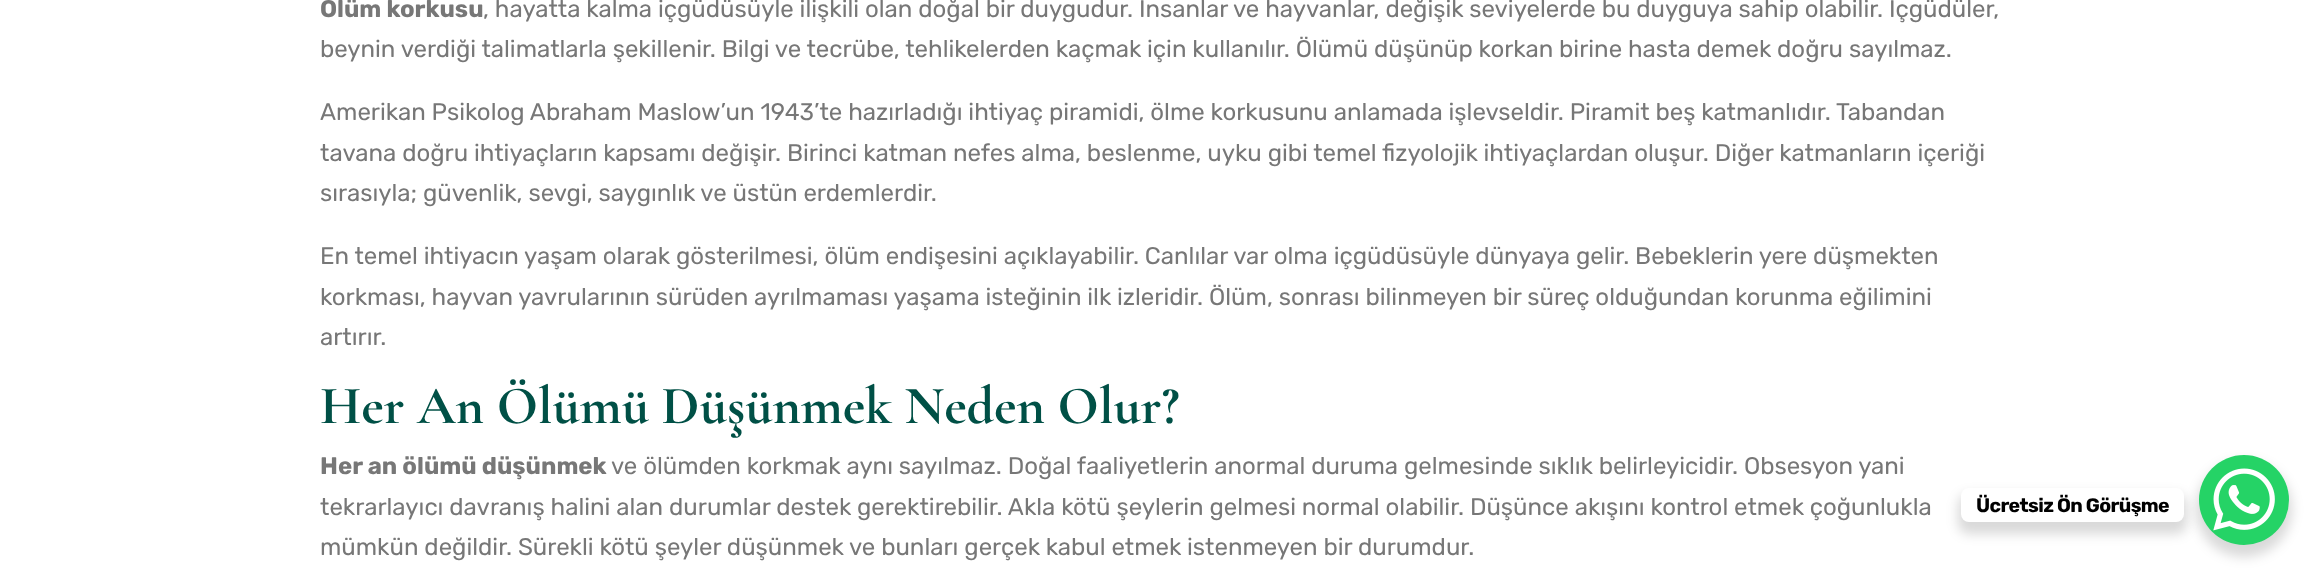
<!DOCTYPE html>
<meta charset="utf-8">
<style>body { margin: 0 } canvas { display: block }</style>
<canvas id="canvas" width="2318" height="574"></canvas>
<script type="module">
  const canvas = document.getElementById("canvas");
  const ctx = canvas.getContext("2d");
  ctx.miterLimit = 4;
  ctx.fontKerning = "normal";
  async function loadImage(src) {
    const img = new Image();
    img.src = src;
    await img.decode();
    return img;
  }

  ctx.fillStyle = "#ffffff";
  ctx.fillRect(0, 0, 2318, 574);
  ctx.font = "bold 24px Rubik";
  ctx.fillStyle = "#777777";
  ctx.fillText("Ölüm korkusu", 320, 17);
  ctx.font = "24px Rubik";
  ctx.fillText(", hayatta kalma içgüdüsüyle ilişkili olan doğal bir duygudur. İnsanlar ve hayvanlar, değişik seviyelerde bu duyguya sahip olabilir. İçgüdüler,", 483, 17);
  ctx.fillText("beynin verdiği talimatlarla şekillenir. Bilgi ve tecrübe, tehlikelerden kaçmak için kullanılır. Ölümü düşünüp korkan birine hasta demek doğru sayılmaz.", 320, 57);
  ctx.fillText("Amerikan Psikolog Abraham Maslow’un 1943’te hazırladığı ihtiyaç piramidi, ölme korkusunu anlamada işlevseldir. Piramit beş katmanlıdır. Tabandan", 320, 120);
  ctx.fillText("tavana doğru ihtiyaçların kapsamı değişir. Birinci katman nefes alma, beslenme, uyku gibi temel fizyolojik ihtiyaçlardan oluşur. Diğer katmanların içeriği", 320, 161);
  ctx.fillText("sırasıyla; güvenlik, sevgi, saygınlık ve üstün erdemlerdir.", 320, 201);
  ctx.fillText("En temel ihtiyacın yaşam olarak gösterilmesi, ölüm endişesini açıklayabilir. Canlılar var olma içgüdüsüyle dünyaya gelir. Bebeklerin yere düşmekten", 320, 264);
  ctx.fillText("korkması, hayvan yavrularının sürüden ayrılmaması yaşama isteğinin ilk izleridir. Ölüm, sonrası bilinmeyen bir süreç olduğundan korunma eğilimini", 320, 305);
  ctx.fillText("artırır.", 320, 345);
  ctx.font = "bold 54px Cormorant Garamond";
  ctx.fillStyle = "#005046";
  ctx.fillText("Her An Ölümü Düşünmek Neden Olur?", 320, 423);
  ctx.font = "bold 24px Rubik";
  ctx.fillStyle = "#777777";
  ctx.fillText("Her an ölümü düşünmek", 320, 474);
  ctx.font = "24px Rubik";
  ctx.fillText("ve ölümden korkmak aynı sayılmaz. Doğal faaliyetlerin anormal duruma gelmesinde sıklık belirleyicidir. Obsesyon yani", 611, 474);
  ctx.fillText("tekrarlayıcı davranış halini alan durumlar destek gerektirebilir. Akla kötü şeylerin gelmesi normal olabilir. Düşünce akışını kontrol etmek çoğunlukla", 320, 515);
  ctx.fillText("mümkün değildir. Sürekli kötü şeyler düşünmek ve bunları gerçek kabul etmek istenmeyen bir durumdur.", 320, 555);
  ctx.fillStyle = "rgba(0, 0, 0, 0.15)";
  ctx.filter = "blur(6px)";
  ctx.beginPath();
  ctx.roundRect(2196, 461, 96, 96, 48);
  ctx.fill();
  ctx.filter = "none";
  ctx.fillStyle = "#25d366";
  ctx.beginPath();
  ctx.arc(2244, 500, 45, 0, Math.PI * 2);
  ctx.fill();
  ctx.fillStyle = "rgba(0, 0, 0, 0.15)";
  ctx.filter = "blur(6px)";
  ctx.beginPath();
  ctx.roundRect(1958, 494, 229, 40, 11);
  ctx.fill();
  ctx.filter = "none";
  ctx.fillStyle = "#ffffff";
  ctx.beginPath();
  ctx.roundRect(1961, 488, 223, 34, 8);
  ctx.fill();
  ctx.letterSpacing = "-0.6px";
  ctx.font = "bold 19.5px Rubik";
  ctx.fillStyle = "#000000";
  ctx.fillText("Ücretsiz Ön Görüşme", 1976, 512);
  ctx.drawImage(await loadImage("img1.png"), 2213, 468, 62, 63);
</script>
